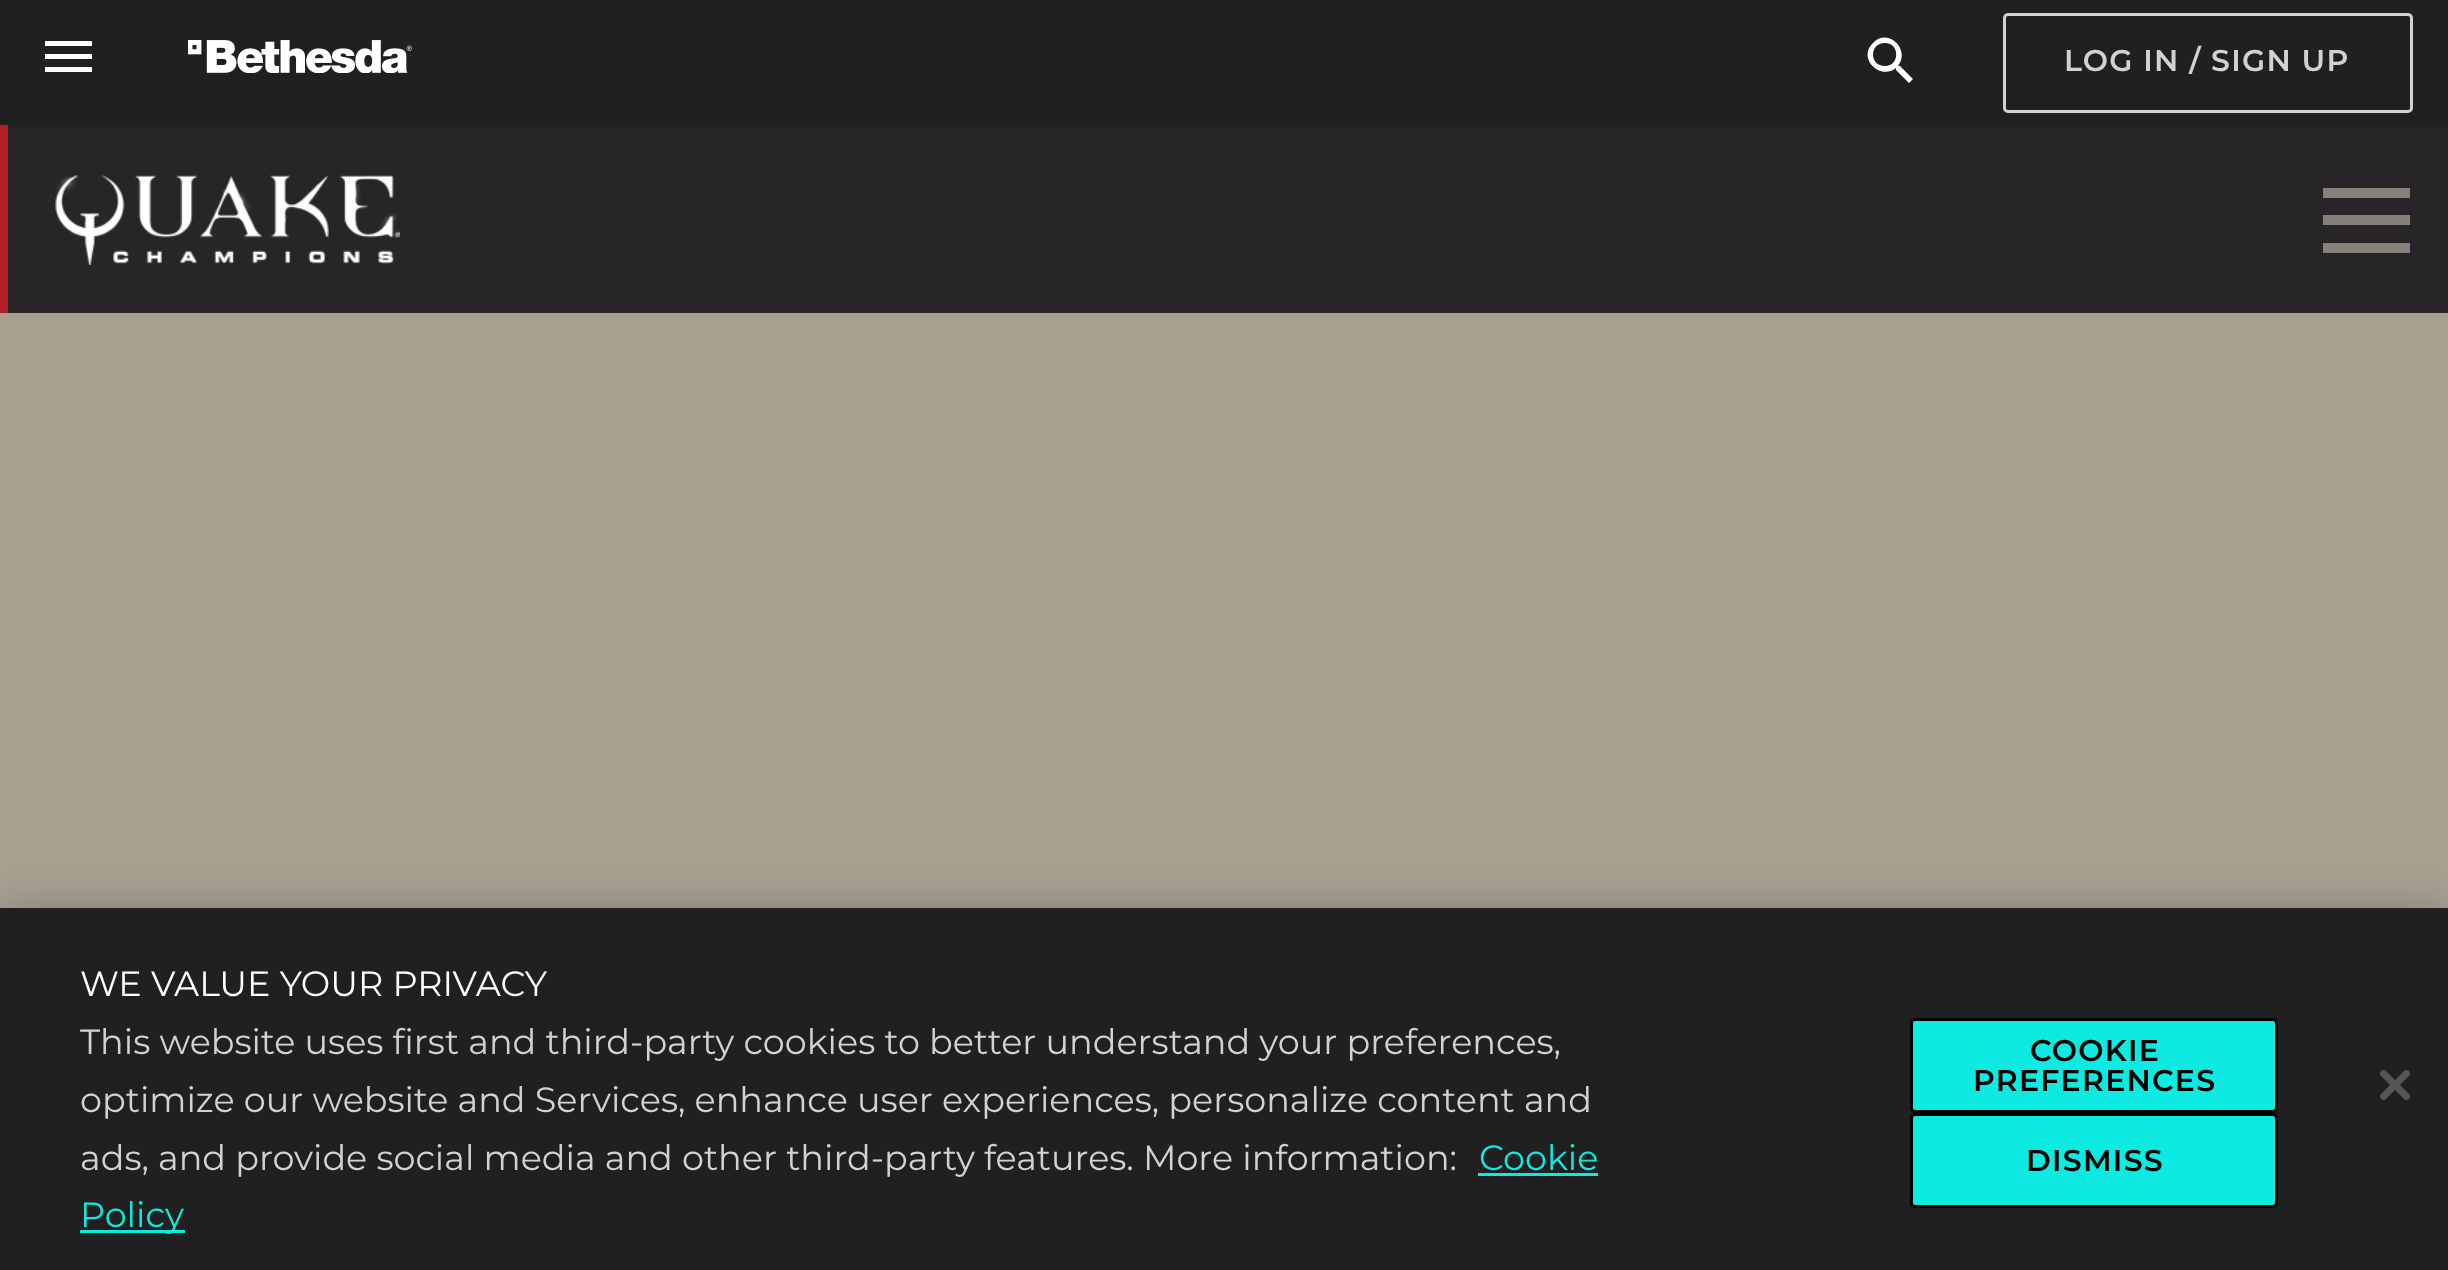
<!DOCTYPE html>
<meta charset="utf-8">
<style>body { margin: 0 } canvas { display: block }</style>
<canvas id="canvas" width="2448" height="1270"></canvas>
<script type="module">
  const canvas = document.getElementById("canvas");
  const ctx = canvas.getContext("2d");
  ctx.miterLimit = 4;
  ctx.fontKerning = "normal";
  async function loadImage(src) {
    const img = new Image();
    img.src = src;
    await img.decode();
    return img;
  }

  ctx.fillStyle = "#a6a191";
  ctx.fillRect(0, 0, 2448, 1270);
  ctx.fillStyle = "#202020";
  ctx.fillRect(0, 0, 2448, 125);
  ctx.fillStyle = "#ffffff";
  ctx.beginPath();
  ctx.moveTo(45, 72);
  ctx.lineTo(92, 72);
  ctx.lineTo(92, 67);
  ctx.lineTo(45, 67);
  ctx.closePath();
  ctx.moveTo(45, 59);
  ctx.lineTo(92, 59);
  ctx.lineTo(92, 54);
  ctx.lineTo(45, 54);
  ctx.closePath();
  ctx.moveTo(45, 41);
  ctx.lineTo(45, 46);
  ctx.lineTo(92, 46);
  ctx.lineTo(92, 41);
  ctx.closePath();
  ctx.fill();
  ctx.drawImage(await loadImage("img1.png"), 188, 40, 224, 33);
  ctx.beginPath();
  ctx.moveTo(1900, 66);
  ctx.lineTo(1898, 66);
  ctx.bezierCurveTo(1911, 50, 1888, 27, 1873, 43);
  ctx.bezierCurveTo(1857, 58, 1880, 81, 1896, 68);
  ctx.lineTo(1896, 70);
  ctx.lineTo(1909, 83);
  ctx.lineTo(1913, 79);
  ctx.closePath();
  ctx.moveTo(1885, 66);
  ctx.bezierCurveTo(1869, 66, 1869, 43, 1885, 43);
  ctx.bezierCurveTo(1900, 43, 1900, 66, 1885, 66);
  ctx.closePath();
  ctx.fill();
  ctx.beginPath();
  ctx.roundRect(2004.5, 14.5, 407, 97, 3.5);
  ctx.strokeStyle = "#d2d2d2";
  ctx.lineWidth = 3;
  ctx.stroke();
  ctx.letterSpacing = "1.25px";
  ctx.font = "600 30px Montserrat";
  ctx.fillStyle = "#d2d2d2";
  ctx.fillText("LOG IN / SIGN UP", 2064, 71);
  ctx.fillStyle = "#272527";
  ctx.fillRect(8, 125, 2440, 188);
  ctx.fillStyle = "#b12027";
  ctx.fillRect(0, 125, 8, 188);
  ctx.drawImage(await loadImage("img2.png"), 55, 175, 345, 90);
  ctx.fillStyle = "#86807b";
  ctx.fillRect(2323, 188, 87, 10);
  ctx.fillRect(2323, 215, 87, 10);
  ctx.fillRect(2323, 243, 87, 10);
  ctx.fillStyle = "rgba(0, 0, 0, 0.2)";
  ctx.filter = "blur(22.5px)";
  ctx.beginPath();
  ctx.rect(0, 908, 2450, 362);
  ctx.fill();
  ctx.filter = "none";
  ctx.fillStyle = "#202020";
  ctx.fillRect(0, 908, 2448, 362);
  ctx.letterSpacing = "0px";
  ctx.font = "35px Montserrat";
  ctx.fillStyle = "#ffffff";
  ctx.fillText("WE VALUE YOUR PRIVACY", 80, 996);
  ctx.fillStyle = "#d2d2d2";
  ctx.fillText("This website uses first and third-party cookies to better understand your preferences,", 80, 1054);
  ctx.fillText("optimize our website and Services, enhance user experiences, personalize content and", 80, 1112);
  ctx.fillText("ads, and provide social media and other third-party features. More information:", 80, 1170);
  ctx.fillStyle = "#0ceae2";
  ctx.fillText("Cookie", 1479, 1170);
  ctx.fillRect(1478, 1173, 120, 3);
  ctx.fillRect(80, 1230, 105, 3);
  ctx.fillText("Policy", 80, 1227);
  ctx.beginPath();
  ctx.roundRect(1911.5, 1019.5, 365, 92, 3.5);
  ctx.fill();
  ctx.strokeStyle = "#000000";
  ctx.stroke();
  ctx.letterSpacing = "1.25px";
  ctx.font = "600 30px Montserrat";
  ctx.fillStyle = "#000000";
  ctx.fillText("COOKIE", 2030, 1061);
  ctx.fillText("PREFERENCES", 1973, 1091);
  ctx.fillStyle = "#0ceae2";
  ctx.beginPath();
  ctx.roundRect(1911.5, 1114.5, 365, 92, 3.5);
  ctx.fill();
  ctx.stroke();
  ctx.fillStyle = "#000000";
  ctx.fillText("DISMISS", 2026, 1171);
  ctx.drawImage(await loadImage("img3.png"), 2380, 1070, 30, 30);
</script>
